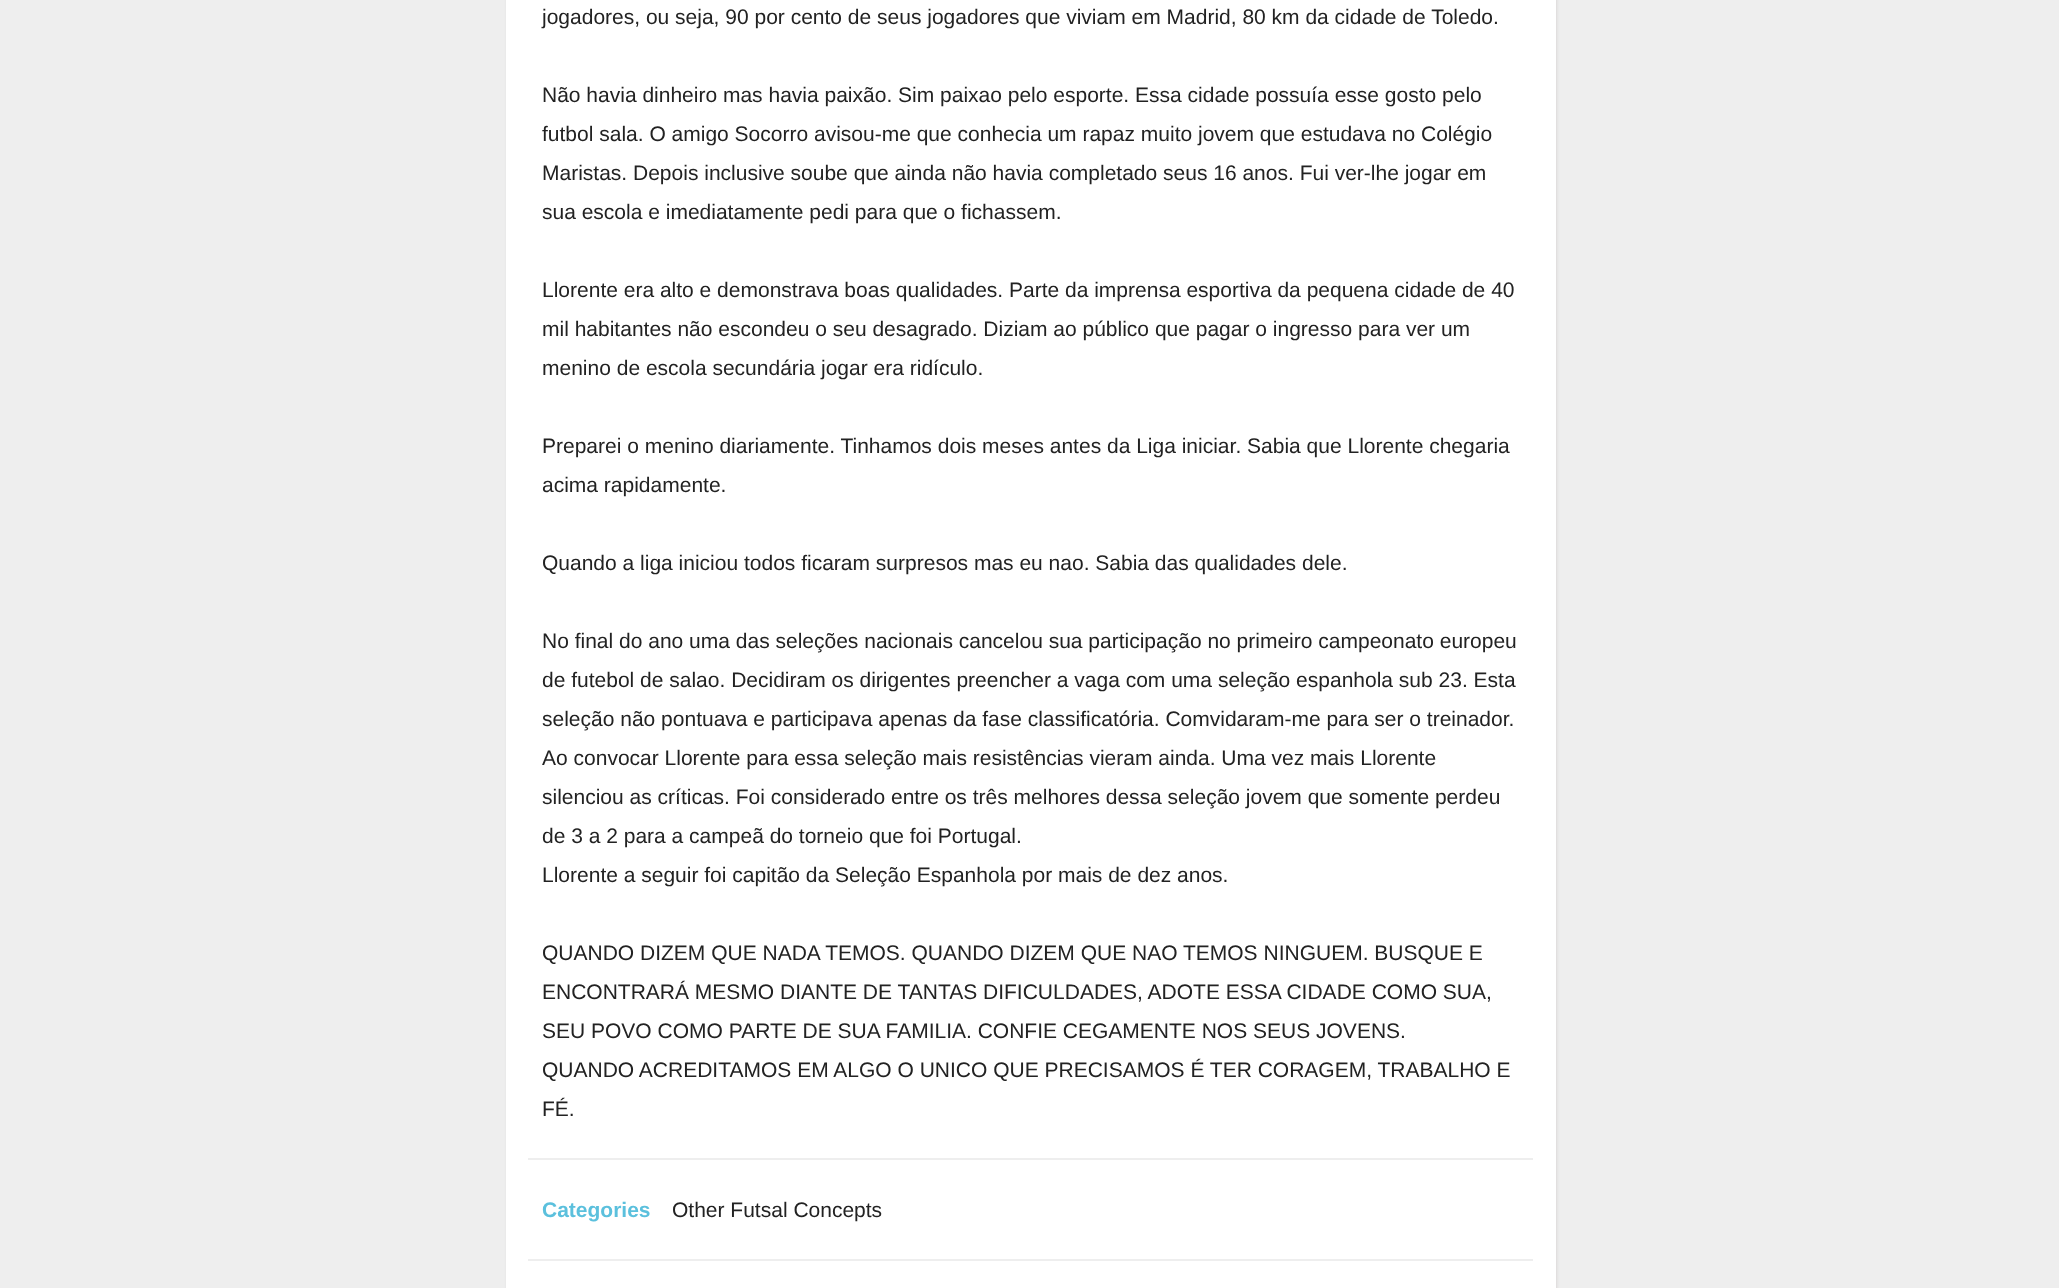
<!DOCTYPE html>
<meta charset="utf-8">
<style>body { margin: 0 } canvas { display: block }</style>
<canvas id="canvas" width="2059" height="1288"></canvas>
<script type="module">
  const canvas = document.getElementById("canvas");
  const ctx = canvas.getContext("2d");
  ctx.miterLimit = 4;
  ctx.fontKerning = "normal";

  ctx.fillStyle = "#eeeeee";
  ctx.fillRect(0, 0, 2059, 1288);
  ctx.fillStyle = "#dad7d7";
  ctx.filter = "blur(1.5px)";
  ctx.beginPath();
  ctx.roundRect(507, -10, 1050, 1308, 5);
  ctx.fill();
  ctx.filter = "none";
  ctx.fillStyle = "#ffffff";
  ctx.fillRect(506, 0, 1050, 1288);
  ctx.font = "21px Liberation Sans";
  ctx.fillStyle = "#222222";
  ctx.fillText("jogadores, ou seja, 90 por cento de seus jogadores que viviam em Madrid, 80 km da cidade de Toledo.", 542, 24);
  ctx.fillText("Não havia dinheiro mas havia paixão. Sim paixao pelo esporte. Essa cidade possuía esse gosto pelo", 542, 102);
  ctx.fillText("futbol sala. O amigo Socorro avisou-me que conhecia um rapaz muito jovem que estudava no Colégio", 542, 141);
  ctx.fillText("Maristas. Depois inclusive soube que ainda não havia completado seus 16 anos. Fui ver-lhe jogar em", 542, 180);
  ctx.fillText("sua escola e imediatamente pedi para que o fichassem.", 542, 219);
  ctx.fillText("Llorente era alto e demonstrava boas qualidades. Parte da imprensa esportiva da pequena cidade de 40", 542, 297);
  ctx.fillText("mil habitantes não escondeu o seu desagrado. Diziam ao público que pagar o ingresso para ver um", 542, 336);
  ctx.fillText("menino de escola secundária jogar era ridículo.", 542, 375);
  ctx.fillText("Preparei o menino diariamente. Tinhamos dois meses antes da Liga iniciar. Sabia que Llorente chegaria", 542, 453);
  ctx.fillText("acima rapidamente.", 542, 492);
  ctx.fillText("Quando a liga iniciou todos ficaram surpresos mas eu nao. Sabia das qualidades dele.", 542, 570);
  ctx.fillText("No final do ano uma das seleções nacionais cancelou sua participação no primeiro campeonato europeu", 542, 648);
  ctx.fillText("de futebol de salao. Decidiram os dirigentes preencher a vaga com uma seleção espanhola sub 23. Esta", 542, 687);
  ctx.fillText("seleção não pontuava e participava apenas da fase classificatória. Comvidaram-me para ser o treinador.", 542, 726);
  ctx.fillText("Ao convocar Llorente para essa seleção mais resistências vieram ainda. Uma vez mais Llorente", 542, 765);
  ctx.fillText("silenciou as críticas. Foi considerado entre os três melhores dessa seleção jovem que somente perdeu", 542, 804);
  ctx.fillText("de 3 a 2 para a campeã do torneio que foi Portugal.", 542, 843);
  ctx.fillText("Llorente a seguir foi capitão da Seleção Espanhola por mais de dez anos.", 542, 882);
  ctx.fillText("QUANDO DIZEM QUE NADA TEMOS. QUANDO DIZEM QUE NAO TEMOS NINGUEM. BUSQUE E", 542, 960);
  ctx.fillText("ENCONTRARÁ MESMO DIANTE DE TANTAS DIFICULDADES, ADOTE ESSA CIDADE COMO SUA,", 542, 999);
  ctx.fillText("SEU POVO COMO PARTE DE SUA FAMILIA. CONFIE CEGAMENTE NOS SEUS JOVENS.", 542, 1038);
  ctx.fillText("QUANDO ACREDITAMOS EM ALGO O UNICO QUE PRECISAMOS É TER CORAGEM, TRABALHO E", 542, 1077);
  ctx.fillText("FÉ.", 542, 1116);
  ctx.fillStyle = "#eeeeee";
  ctx.fillRect(528, 1158, 1005, 2);
  ctx.font = "bold 21px Liberation Sans";
  ctx.fillStyle = "#5bc0dd";
  ctx.fillText("Categories", 542, 1217);
  ctx.font = "21px Liberation Sans";
  ctx.fillStyle = "#222222";
  ctx.fillText("Other Futsal Concepts", 672, 1217);
  ctx.fillStyle = "#eeeeee";
  ctx.fillRect(528, 1259, 1005, 2);
</script>
